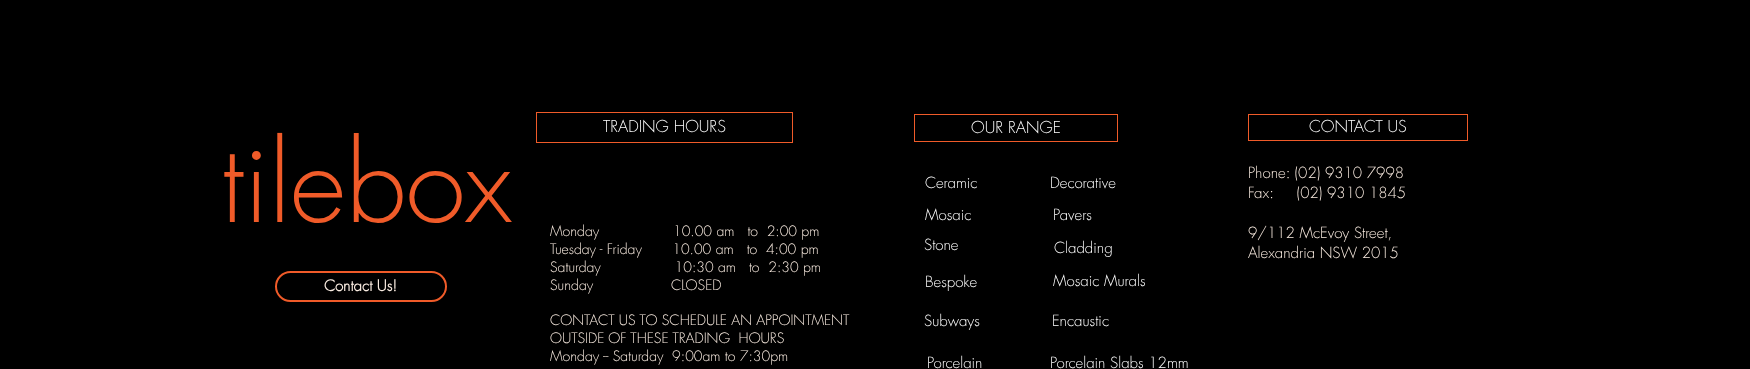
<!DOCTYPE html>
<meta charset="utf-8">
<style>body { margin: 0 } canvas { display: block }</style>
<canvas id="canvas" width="1750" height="369"></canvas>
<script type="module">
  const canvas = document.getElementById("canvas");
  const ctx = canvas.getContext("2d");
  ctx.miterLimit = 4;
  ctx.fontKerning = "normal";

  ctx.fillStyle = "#000000";
  ctx.fillRect(0, 0, 1750, 369);
  ctx.strokeStyle = "#f05b29";
  ctx.strokeRect(536.5, 112.5, 256, 30);
  ctx.font = "300 16px futura";
  ctx.fillStyle = "#ffffff";
  ctx.fillText("TRADING HOURS", 603, 132);
  ctx.strokeRect(914.5, 114.5, 203, 27);
  ctx.fillText("OUR RANGE", 971, 133);
  ctx.strokeRect(1248.5, 114.5, 219, 26);
  ctx.fillText("CONTACT US", 1309, 132);
  ctx.font = "300 108px futura";
  ctx.fillStyle = "#f05b29";
  ctx.fillText("tilebox", 221, 222);
  ctx.font = "300 15px futura";
  ctx.fillStyle = "#ffffff";
  ctx.fillText("Ceramic", 925, 188);
  ctx.fillText("Decorative", 1050, 188);
  ctx.fillStyle = "#faece1";
  ctx.fillText("Phone: (02) 9310 7998", 1248, 178);
  ctx.fillText("Fax:     (02) 9310 1845", 1248, 198);
  ctx.fillText("9/112 McEvoy Street,", 1248, 238);
  ctx.fillText("Alexandria NSW 2015", 1248, 258);
  ctx.fillStyle = "#ffffff";
  ctx.fillText("Mosaic", 925, 220);
  ctx.fillText("Pavers", 1053, 220);
  ctx.font = "300 14px futura";
  ctx.fillStyle = "#faece1";
  ctx.fillText("Monday                 10.00 am   to  2:00 pm", 550, 236);
  ctx.fillText("Tuesday - Friday       10.00 am   to  4:00 pm", 550, 254);
  ctx.fillText("Saturday                 10:30 am   to  2:30 pm", 550, 272);
  ctx.fillText("Sunday                  CLOSED", 550, 290);
  ctx.fillText("CONTACT US TO SCHEDULE AN APPOINTMENT", 550, 325);
  ctx.fillText("OUTSIDE OF THESE TRADING  HOURS", 550, 343);
  ctx.fillText("Monday -- Saturday  9:00am to 7:30pm", 550, 361);
  ctx.font = "300 15px futura";
  ctx.fillStyle = "#ffffff";
  ctx.fillText("Stone", 924, 250);
  ctx.fillText("Cladding", 1054, 253);
  ctx.beginPath();
  ctx.roundRect(276, 272, 170, 29, 14.5);
  ctx.lineWidth = 2;
  ctx.stroke();
  ctx.font = "bold 15px futura";
  ctx.fillStyle = "#faece1";
  ctx.fillText("Contact Us!", 324, 291);
  ctx.font = "300 15px futura";
  ctx.fillStyle = "#ffffff";
  ctx.fillText("Bespoke", 925, 287);
  ctx.fillText("Mosaic Murals", 1053, 286);
  ctx.fillText("Subways", 924, 326);
  ctx.fillText("Encaustic", 1052, 326);
  ctx.fillText("Porcelain", 927, 368);
  ctx.fillText("Porcelain Slabs 12mm", 1050, 368);
</script>
